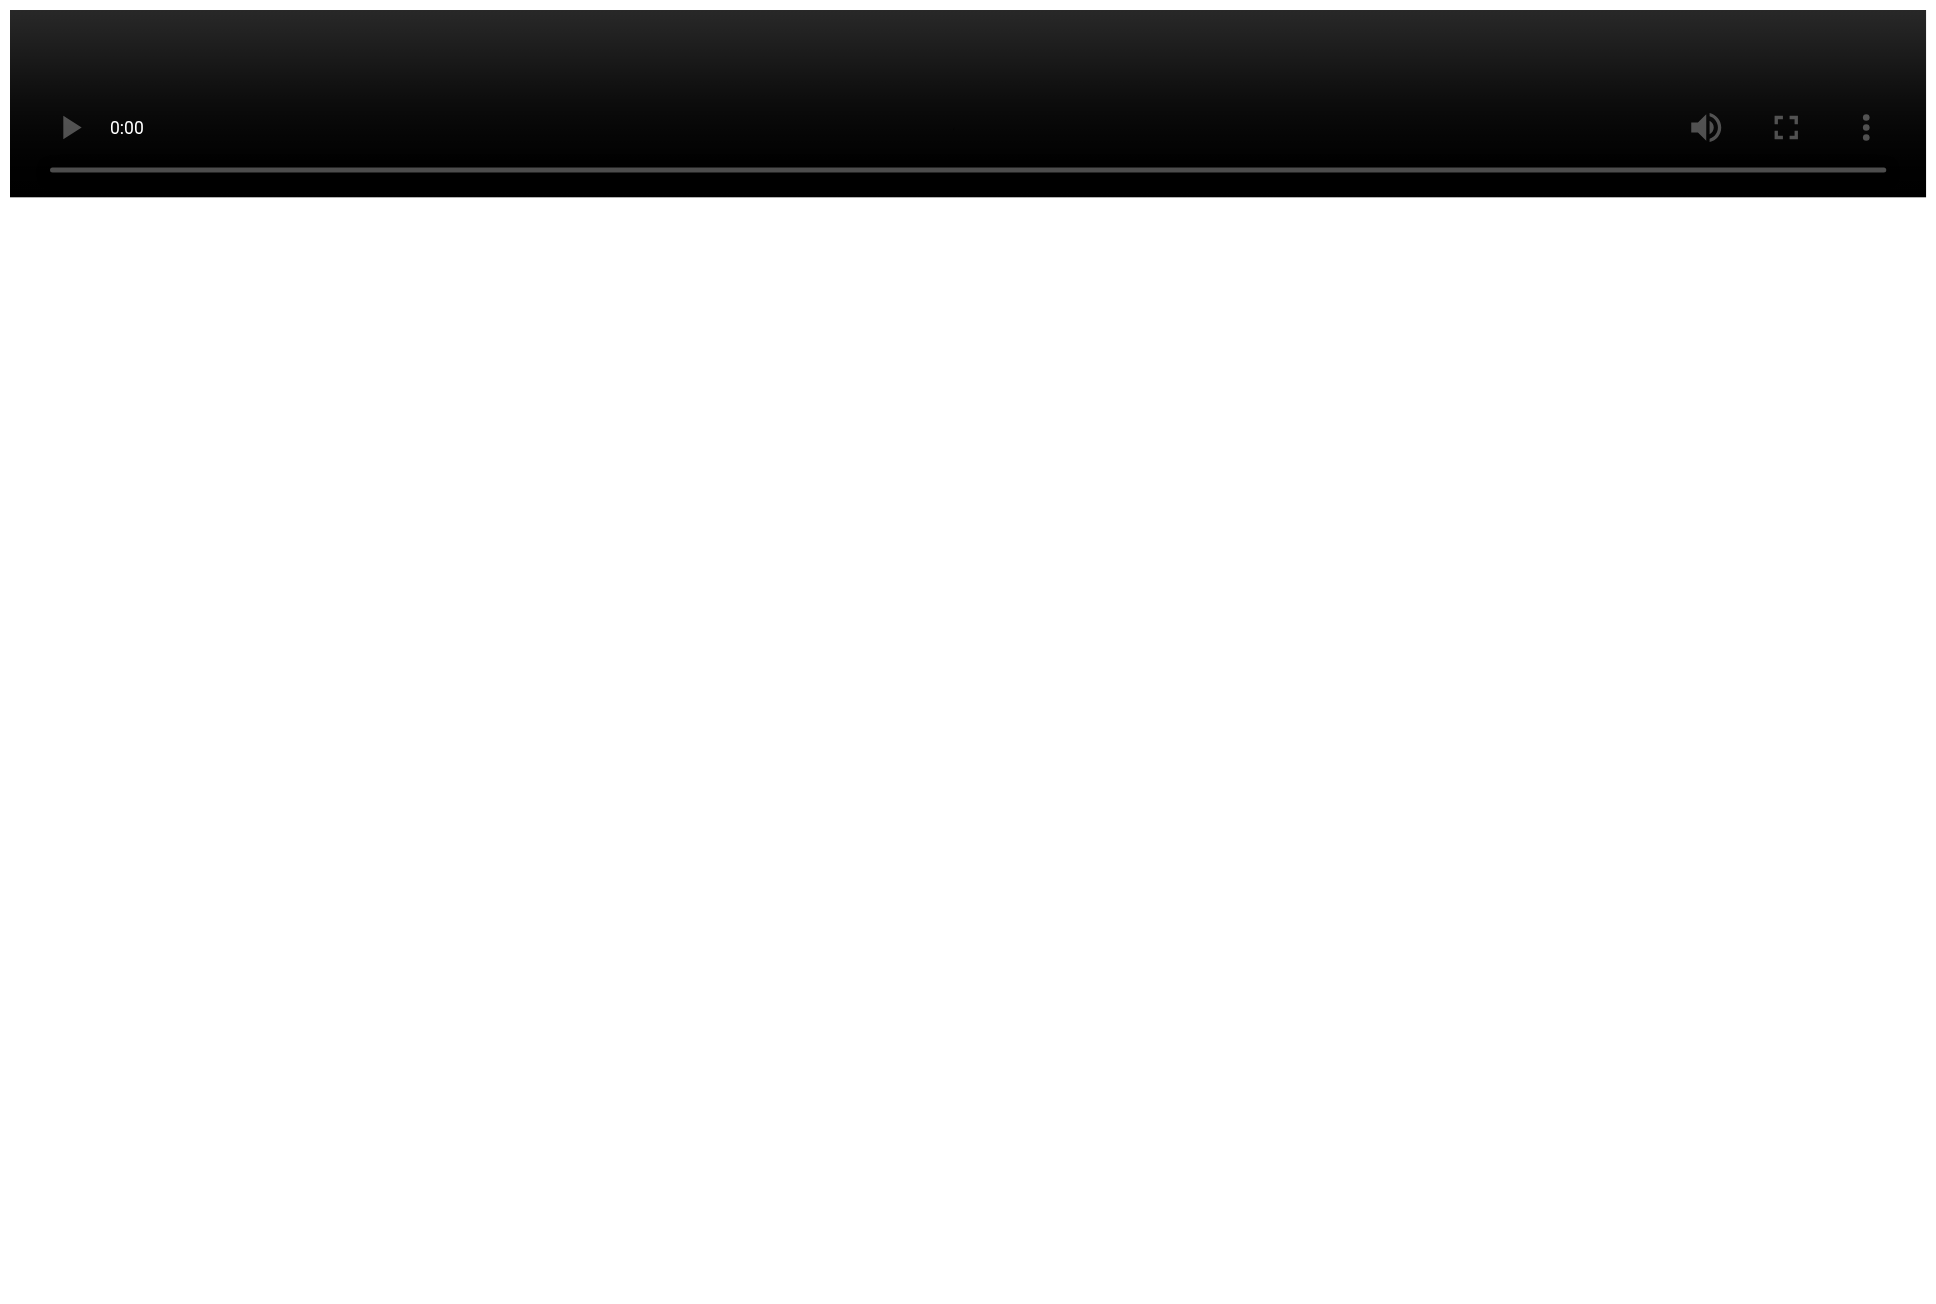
<!DOCTYPE html>
<meta charset="utf-8">
<style>body { margin: 0 } canvas { display: block }</style>
<canvas id="canvas" width="1936" height="1304"></canvas>
<script type="module">
  const canvas = document.getElementById("canvas");
  const ctx = canvas.getContext("2d");
  ctx.miterLimit = 4;
  ctx.fontKerning = "normal";
  async function loadImage(src) {
    const img = new Image();
    img.src = src;
    await img.decode();
    return img;
  }

  ctx.fillStyle = "#ffffff";
  ctx.fillRect(0, 0, 1936, 1304);
  ctx.drawImage(await loadImage("img1.png"), 10, 10, 1917, 188);
</script>
